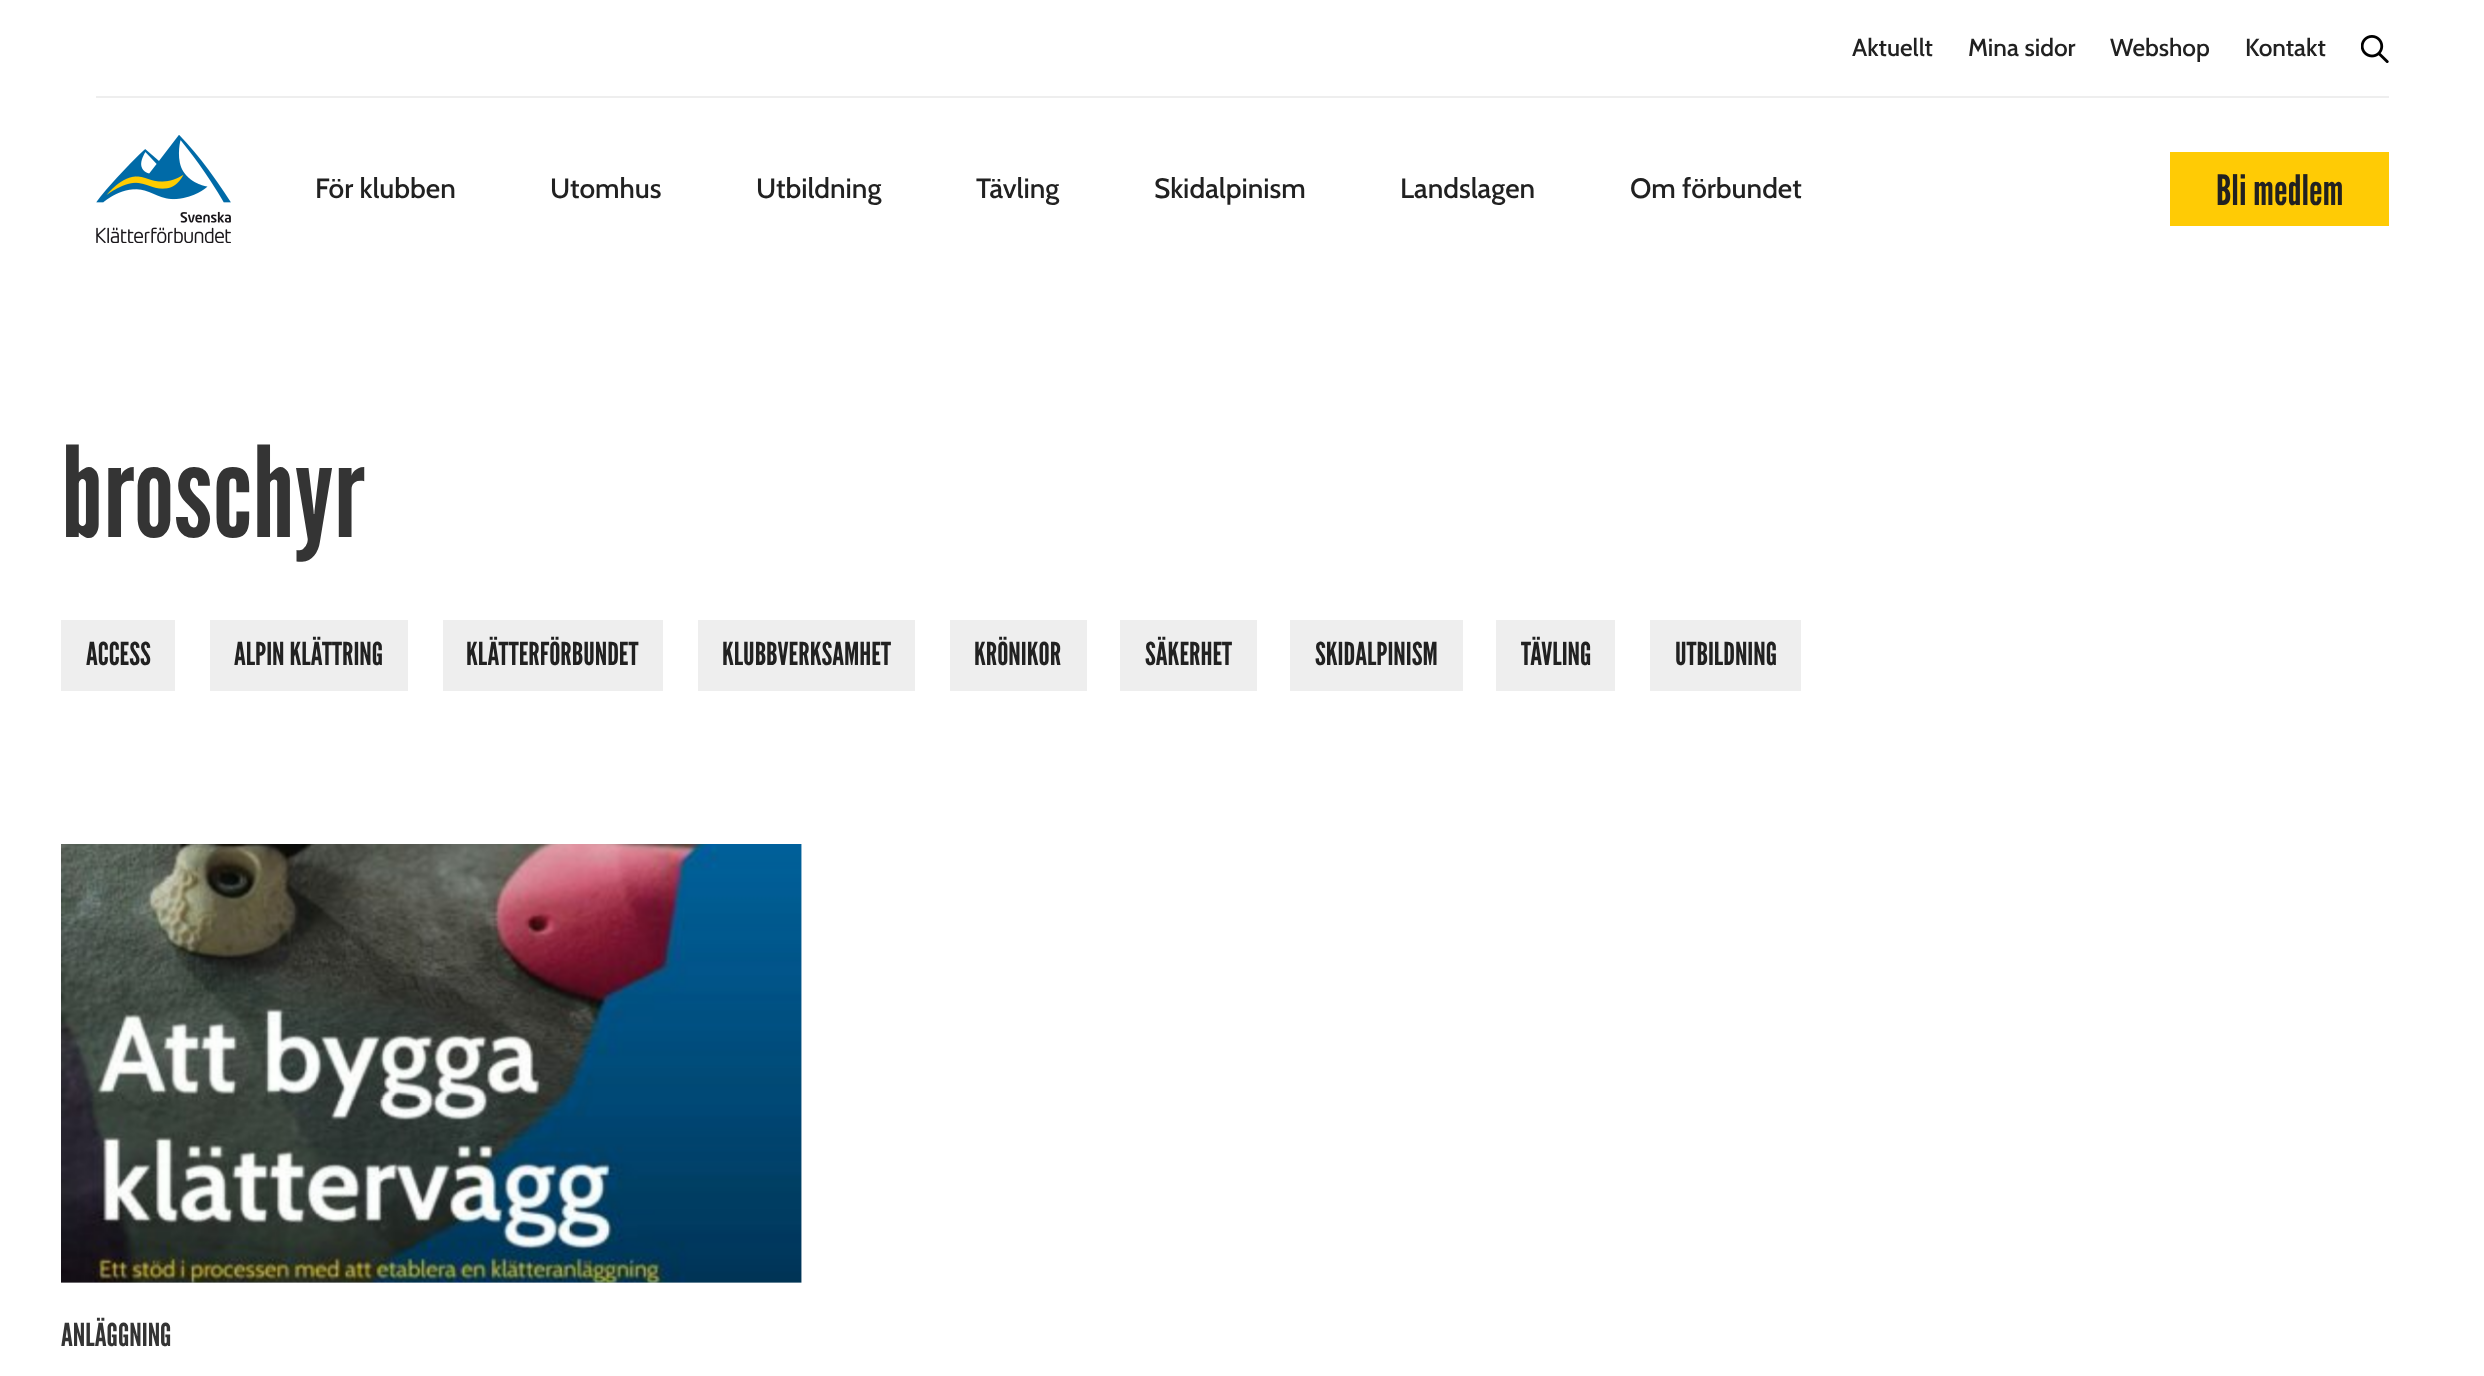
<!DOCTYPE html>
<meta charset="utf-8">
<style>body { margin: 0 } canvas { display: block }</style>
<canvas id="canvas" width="2484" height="1376"></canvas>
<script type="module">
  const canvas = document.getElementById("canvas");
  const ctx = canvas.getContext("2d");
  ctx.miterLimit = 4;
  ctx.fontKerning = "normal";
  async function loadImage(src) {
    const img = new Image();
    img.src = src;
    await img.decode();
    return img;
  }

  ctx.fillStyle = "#ffffff";
  ctx.fillRect(0, 0, 2484, 1376);
  ctx.font = "500 24.5px Cabin";
  ctx.fillStyle = "#212121";
  ctx.fillText("Aktuellt", 1852, 56);
  ctx.fillText("Mina sidor", 1968, 56);
  ctx.fillText("Webshop", 2110, 56);
  ctx.fillText("Kontakt", 2245, 56);
  ctx.drawImage(await loadImage("img1.png"), 2361, 35, 28, 28);
  ctx.fillStyle = "#eeeeee";
  ctx.fillRect(96, 96, 2293, 2);
  ctx.drawImage(await loadImage("img2.png"), 96, 135, 135, 108);
  ctx.font = "500 28px Cabin";
  ctx.fillStyle = "#212121";
  ctx.fillText("För klubben", 315, 198);
  ctx.fillText("Utomhus", 550, 198);
  ctx.fillText("Utbildning", 756, 198);
  ctx.fillText("Tävling", 976, 198);
  ctx.fillText("Skidalpinism", 1154, 198);
  ctx.fillText("Landslagen", 1400, 198);
  ctx.fillText("Om förbundet", 1630, 198);
  ctx.fillStyle = "#ffcb05";
  ctx.fillRect(2170, 152, 219, 74);
  ctx.font = "42px League Gothic";
  ctx.fillStyle = "#212121";
  ctx.fillText("Bli medlem", 2216, 205);
  ctx.font = "126px League Gothic";
  ctx.fillStyle = "#343434";
  ctx.fillText("broschyr", 61, 537);
  ctx.fillStyle = "#eeeeee";
  ctx.fillRect(61, 620, 114, 71);
  ctx.font = "31.5px League Gothic";
  ctx.fillStyle = "#212121";
  ctx.fillText("ACCESS", 86, 665);
  ctx.fillStyle = "#eeeeee";
  ctx.fillRect(210, 620, 198, 71);
  ctx.fillStyle = "#212121";
  ctx.fillText("ALPIN KLÄTTRING", 234, 665);
  ctx.fillStyle = "#eeeeee";
  ctx.fillRect(443, 620, 220, 71);
  ctx.fillStyle = "#212121";
  ctx.fillText("KLÄTTERFÖRBUNDET", 466, 665);
  ctx.fillStyle = "#eeeeee";
  ctx.fillRect(698, 620, 217, 71);
  ctx.fillStyle = "#212121";
  ctx.fillText("KLUBBVERKSAMHET", 722, 665);
  ctx.fillStyle = "#eeeeee";
  ctx.fillRect(950, 620, 137, 71);
  ctx.fillStyle = "#212121";
  ctx.fillText("KRÖNIKOR", 974, 665);
  ctx.fillStyle = "#eeeeee";
  ctx.fillRect(1120, 620, 137, 71);
  ctx.fillStyle = "#212121";
  ctx.fillText("SÄKERHET", 1145, 665);
  ctx.fillStyle = "#eeeeee";
  ctx.fillRect(1290, 620, 173, 71);
  ctx.fillStyle = "#212121";
  ctx.fillText("SKIDALPINISM", 1315, 665);
  ctx.fillStyle = "#eeeeee";
  ctx.fillRect(1496, 620, 119, 71);
  ctx.fillStyle = "#212121";
  ctx.fillText("TÄVLING", 1521, 665);
  ctx.fillStyle = "#eeeeee";
  ctx.fillRect(1650, 620, 151, 71);
  ctx.fillStyle = "#212121";
  ctx.fillText("UTBILDNING", 1675, 665);
  ctx.drawImage(await loadImage("img3.png"), 61, 844, 741, 439);
  ctx.fillStyle = "#343434";
  ctx.fillText("ANLÄGGNING", 61, 1346);
</script>
